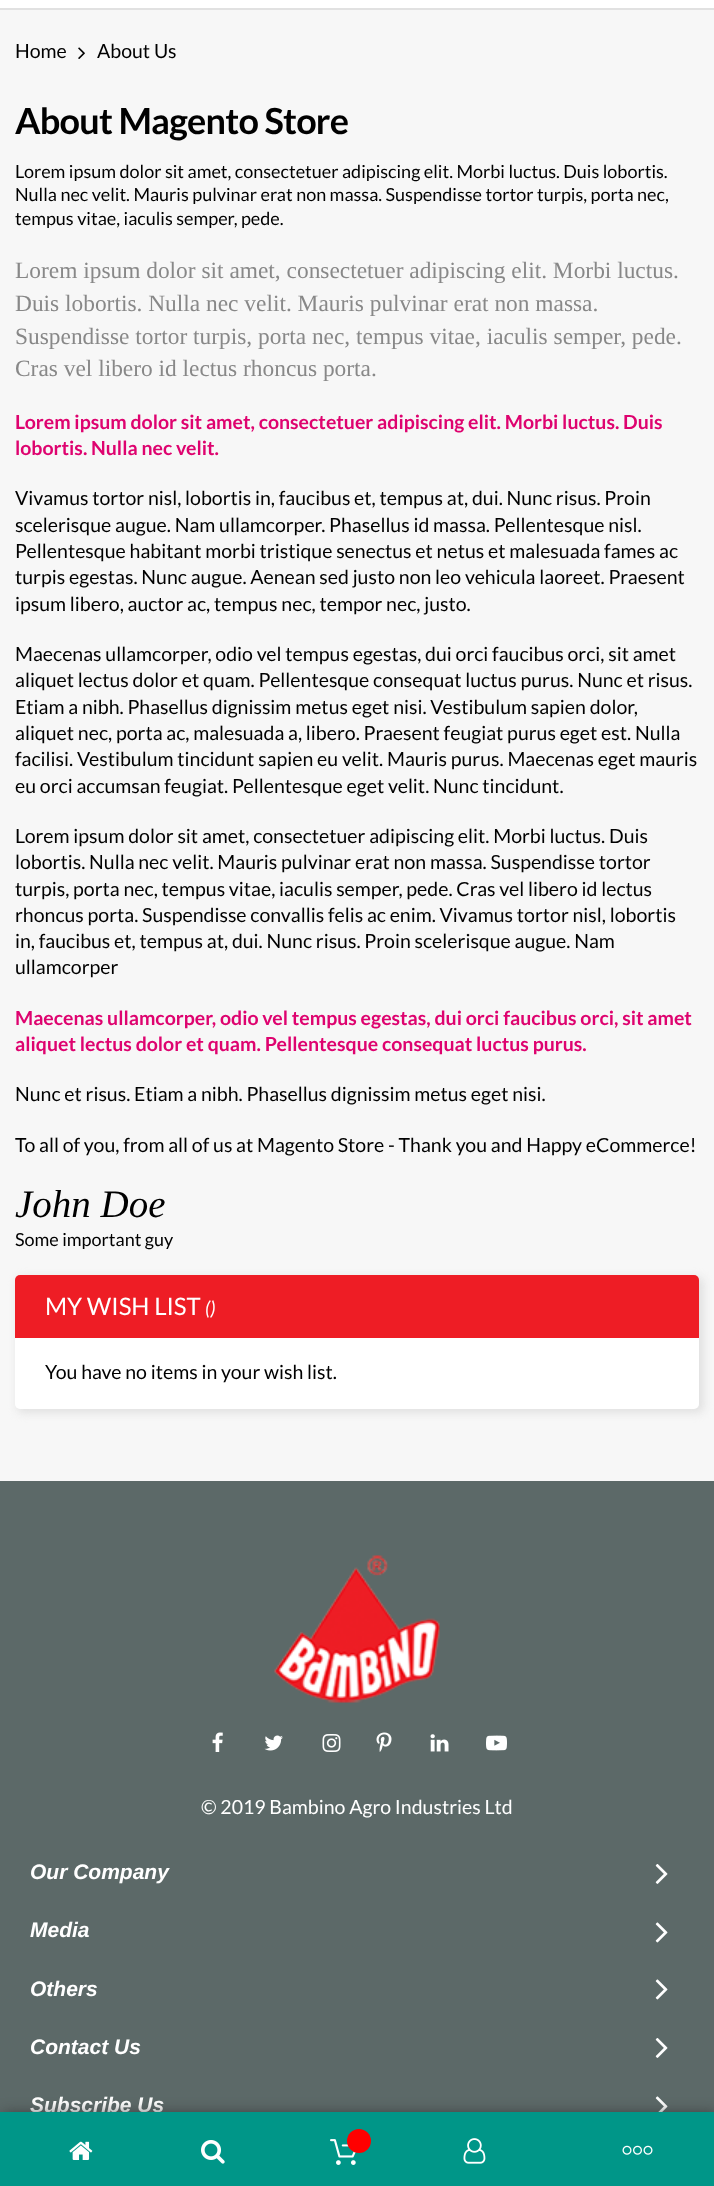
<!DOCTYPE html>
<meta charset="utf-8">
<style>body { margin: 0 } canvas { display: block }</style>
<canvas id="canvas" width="714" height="2186"></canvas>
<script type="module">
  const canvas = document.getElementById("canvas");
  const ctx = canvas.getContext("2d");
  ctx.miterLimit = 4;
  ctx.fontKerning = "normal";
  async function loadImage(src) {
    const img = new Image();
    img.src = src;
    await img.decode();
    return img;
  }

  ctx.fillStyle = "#f7f7f7";
  ctx.fillRect(0, 0, 714, 2186);
  ctx.fillStyle = "#ffffff";
  ctx.fillRect(0, 0, 714, 8);
  ctx.fillStyle = "#e1e1e1";
  ctx.fillRect(0, 8, 714, 2);
  ctx.font = "19.5px Lato";
  ctx.fillStyle = "#000000";
  ctx.fillText("Home", 15, 58);
  ctx.drawImage(await loadImage("img1.png"), 78, 47, 7, 12);
  ctx.fillText("About Us", 97, 58);
  ctx.letterSpacing = "-0.75px";
  ctx.font = "bold 36px Lato";
  ctx.fillText("About Magento Store", 15, 134);
  ctx.letterSpacing = "0px";
  ctx.font = "18px Lato";
  ctx.fillText("Lorem ipsum dolor sit amet, consectetuer adipiscing elit. Morbi luctus. Duis lobortis.", 15, 178);
  ctx.fillText("Nulla nec velit. Mauris pulvinar erat non massa. Suspendisse tortor turpis, porta nec,", 15, 201);
  ctx.fillText("tempus vitae, iaculis semper, pede.", 15, 225);
  ctx.font = "23.4px Liberation Serif";
  ctx.fillStyle = "#888888";
  ctx.fillText("Lorem ipsum dolor sit amet, consectetuer adipiscing elit. Morbi luctus.", 15, 278);
  ctx.fillText("Duis lobortis. Nulla nec velit. Mauris pulvinar erat non massa.", 15, 311);
  ctx.fillText("Suspendisse tortor turpis, porta nec, tempus vitae, iaculis semper, pede.", 15, 344);
  ctx.fillText("Cras vel libero id lectus rhoncus porta.", 15, 376);
  ctx.font = "bold 19.5px Lato";
  ctx.fillStyle = "#de036f";
  ctx.fillText("Lorem ipsum dolor sit amet, consectetuer adipiscing elit. Morbi luctus. Duis", 15, 429);
  ctx.fillText("lobortis. Nulla nec velit.", 15, 455);
  ctx.font = "19.5px Lato";
  ctx.fillStyle = "#000000";
  ctx.fillText("Vivamus tortor nisl, lobortis in, faucibus et, tempus at, dui. Nunc risus. Proin", 15, 505);
  ctx.fillText("scelerisque augue. Nam ullamcorper. Phasellus id massa. Pellentesque nisl.", 15, 532);
  ctx.fillText("Pellentesque habitant morbi tristique senectus et netus et malesuada fames ac", 15, 558);
  ctx.fillText("turpis egestas. Nunc augue. Aenean sed justo non leo vehicula laoreet. Praesent", 15, 584);
  ctx.fillText("ipsum libero, auctor ac, tempus nec, tempor nec, justo.", 15, 611);
  ctx.fillText("Maecenas ullamcorper, odio vel tempus egestas, dui orci faucibus orci, sit amet", 15, 661);
  ctx.fillText("aliquet lectus dolor et quam. Pellentesque consequat luctus purus. Nunc et risus.", 15, 687);
  ctx.fillText("Etiam a nibh. Phasellus dignissim metus eget nisi. Vestibulum sapien dolor,", 15, 714);
  ctx.fillText("aliquet nec, porta ac, malesuada a, libero. Praesent feugiat purus eget est. Nulla", 15, 740);
  ctx.fillText("facilisi. Vestibulum tincidunt sapien eu velit. Mauris purus. Maecenas eget mauris", 15, 766);
  ctx.fillText("eu orci accumsan feugiat. Pellentesque eget velit. Nunc tincidunt.", 15, 793);
  ctx.fillText("Lorem ipsum dolor sit amet, consectetuer adipiscing elit. Morbi luctus. Duis", 15, 843);
  ctx.fillText("lobortis. Nulla nec velit. Mauris pulvinar erat non massa. Suspendisse tortor", 15, 869);
  ctx.fillText("turpis, porta nec, tempus vitae, iaculis semper, pede. Cras vel libero id lectus", 15, 896);
  ctx.fillText("rhoncus porta. Suspendisse convallis felis ac enim. Vivamus tortor nisl, lobortis", 15, 922);
  ctx.fillText("in, faucibus et, tempus at, dui. Nunc risus. Proin scelerisque augue. Nam", 15, 948);
  ctx.fillText("ullamcorper", 15, 974);
  ctx.font = "bold 19.5px Lato";
  ctx.fillStyle = "#de036f";
  ctx.fillText("Maecenas ullamcorper, odio vel tempus egestas, dui orci faucibus orci, sit amet", 15, 1025);
  ctx.fillText("aliquet lectus dolor et quam. Pellentesque consequat luctus purus.", 15, 1051);
  ctx.font = "19.5px Lato";
  ctx.fillStyle = "#000000";
  ctx.fillText("Nunc et risus. Etiam a nibh. Phasellus dignissim metus eget nisi.", 15, 1101);
  ctx.fillText("To all of you, from all of us at Magento Store - Thank you and Happy eCommerce!", 15, 1152);
  ctx.font = "italic 39px Liberation Serif";
  ctx.fillText("John Doe", 15, 1217);
  ctx.font = "18px Lato";
  ctx.fillText("Some important guy", 15, 1246);
  ctx.fillStyle = "#e1e1e1";
  ctx.filter = "blur(4px)";
  ctx.beginPath();
  ctx.roundRect(17, 1277, 687, 136, 6);
  ctx.fill();
  ctx.filter = "none";
  ctx.fillStyle = "#ee1d25";
  ctx.beginPath();
  ctx.roundRect(15, 1275, 684, 63, [5, 5, 0, 0]);
  ctx.fill();
  ctx.font = "24px Lato";
  ctx.fillStyle = "#ffffff";
  ctx.fillText("MY WISH LIST", 45, 1315);
  ctx.font = "italic 19px Lato";
  ctx.fillText("()", 205, 1315);
  ctx.beginPath();
  ctx.roundRect(15, 1338, 684, 71, [0, 0, 5, 5]);
  ctx.fill();
  ctx.font = "19.5px Lato";
  ctx.fillStyle = "#000000";
  ctx.fillText("You have no items in your wish list.", 45, 1379);
  ctx.fillStyle = "#5c6968";
  ctx.fillRect(0, 1481, 714, 631);
  ctx.drawImage(await loadImage("img2.png"), 274, 1555, 166, 148);
  ctx.drawImage(await loadImage("img3.png"), 212, 1732, 11, 20);
  ctx.drawImage(await loadImage("img4.png"), 264, 1735, 19, 16);
  ctx.drawImage(await loadImage("img5.png"), 322, 1734, 19, 18);
  ctx.drawImage(await loadImage("img6.png"), 376, 1732, 16, 20);
  ctx.drawImage(await loadImage("img7.png"), 430, 1734, 19, 18);
  ctx.drawImage(await loadImage("img8.png"), 486, 1735, 21, 16);
  ctx.fillStyle = "#ffffff";
  ctx.fillText("© 2019 Bambino Agro Industries Ltd", 201, 1814);
  ctx.font = "italic bold 21px Liberation Sans";
  ctx.fillText("Our Company", 30, 1879);
  ctx.drawImage(await loadImage("img9.png"), 655, 1864, 13, 20);
  ctx.fillText("Media", 30, 1937);
  ctx.drawImage(await loadImage("img10.png"), 655, 1922, 13, 21);
  ctx.fillText("Others", 30, 1996);
  ctx.drawImage(await loadImage("img10.png"), 655, 1979, 13, 21);
  ctx.fillText("Contact Us", 30, 2054);
  ctx.drawImage(await loadImage("img9.png"), 655, 2038, 13, 20);
  ctx.fillText("Subscribe Us", 30, 2112);
  ctx.drawImage(await loadImage("img11.png"), 655, 2096, 13, 16);
  ctx.fillStyle = "#333333";
  ctx.filter = "blur(7.5px)";
  ctx.beginPath();
  ctx.rect(3, 2115, 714, 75);
  ctx.fill();
  ctx.filter = "none";
  ctx.fillStyle = "#009688";
  ctx.fillRect(0, 2112, 714, 74);
  ctx.drawImage(await loadImage("img12.png"), 69, 2141, 24, 19);
  ctx.drawImage(await loadImage("img13.png"), 201, 2140, 24, 24);
  ctx.drawImage(await loadImage("img14.png"), 330, 2139, 26, 26);
  ctx.fillStyle = "#ff0000";
  ctx.beginPath();
  ctx.arc(359, 2141, 12, 0, Math.PI * 2);
  ctx.fill();
  ctx.drawImage(await loadImage("img15.png"), 463, 2138, 23, 26);
  ctx.drawImage(await loadImage("img16.png"), 622, 2145, 10, 10);
  ctx.drawImage(await loadImage("img17.png"), 633, 2145, 9, 10);
  ctx.drawImage(await loadImage("img16.png"), 643, 2145, 10, 10);
</script>
